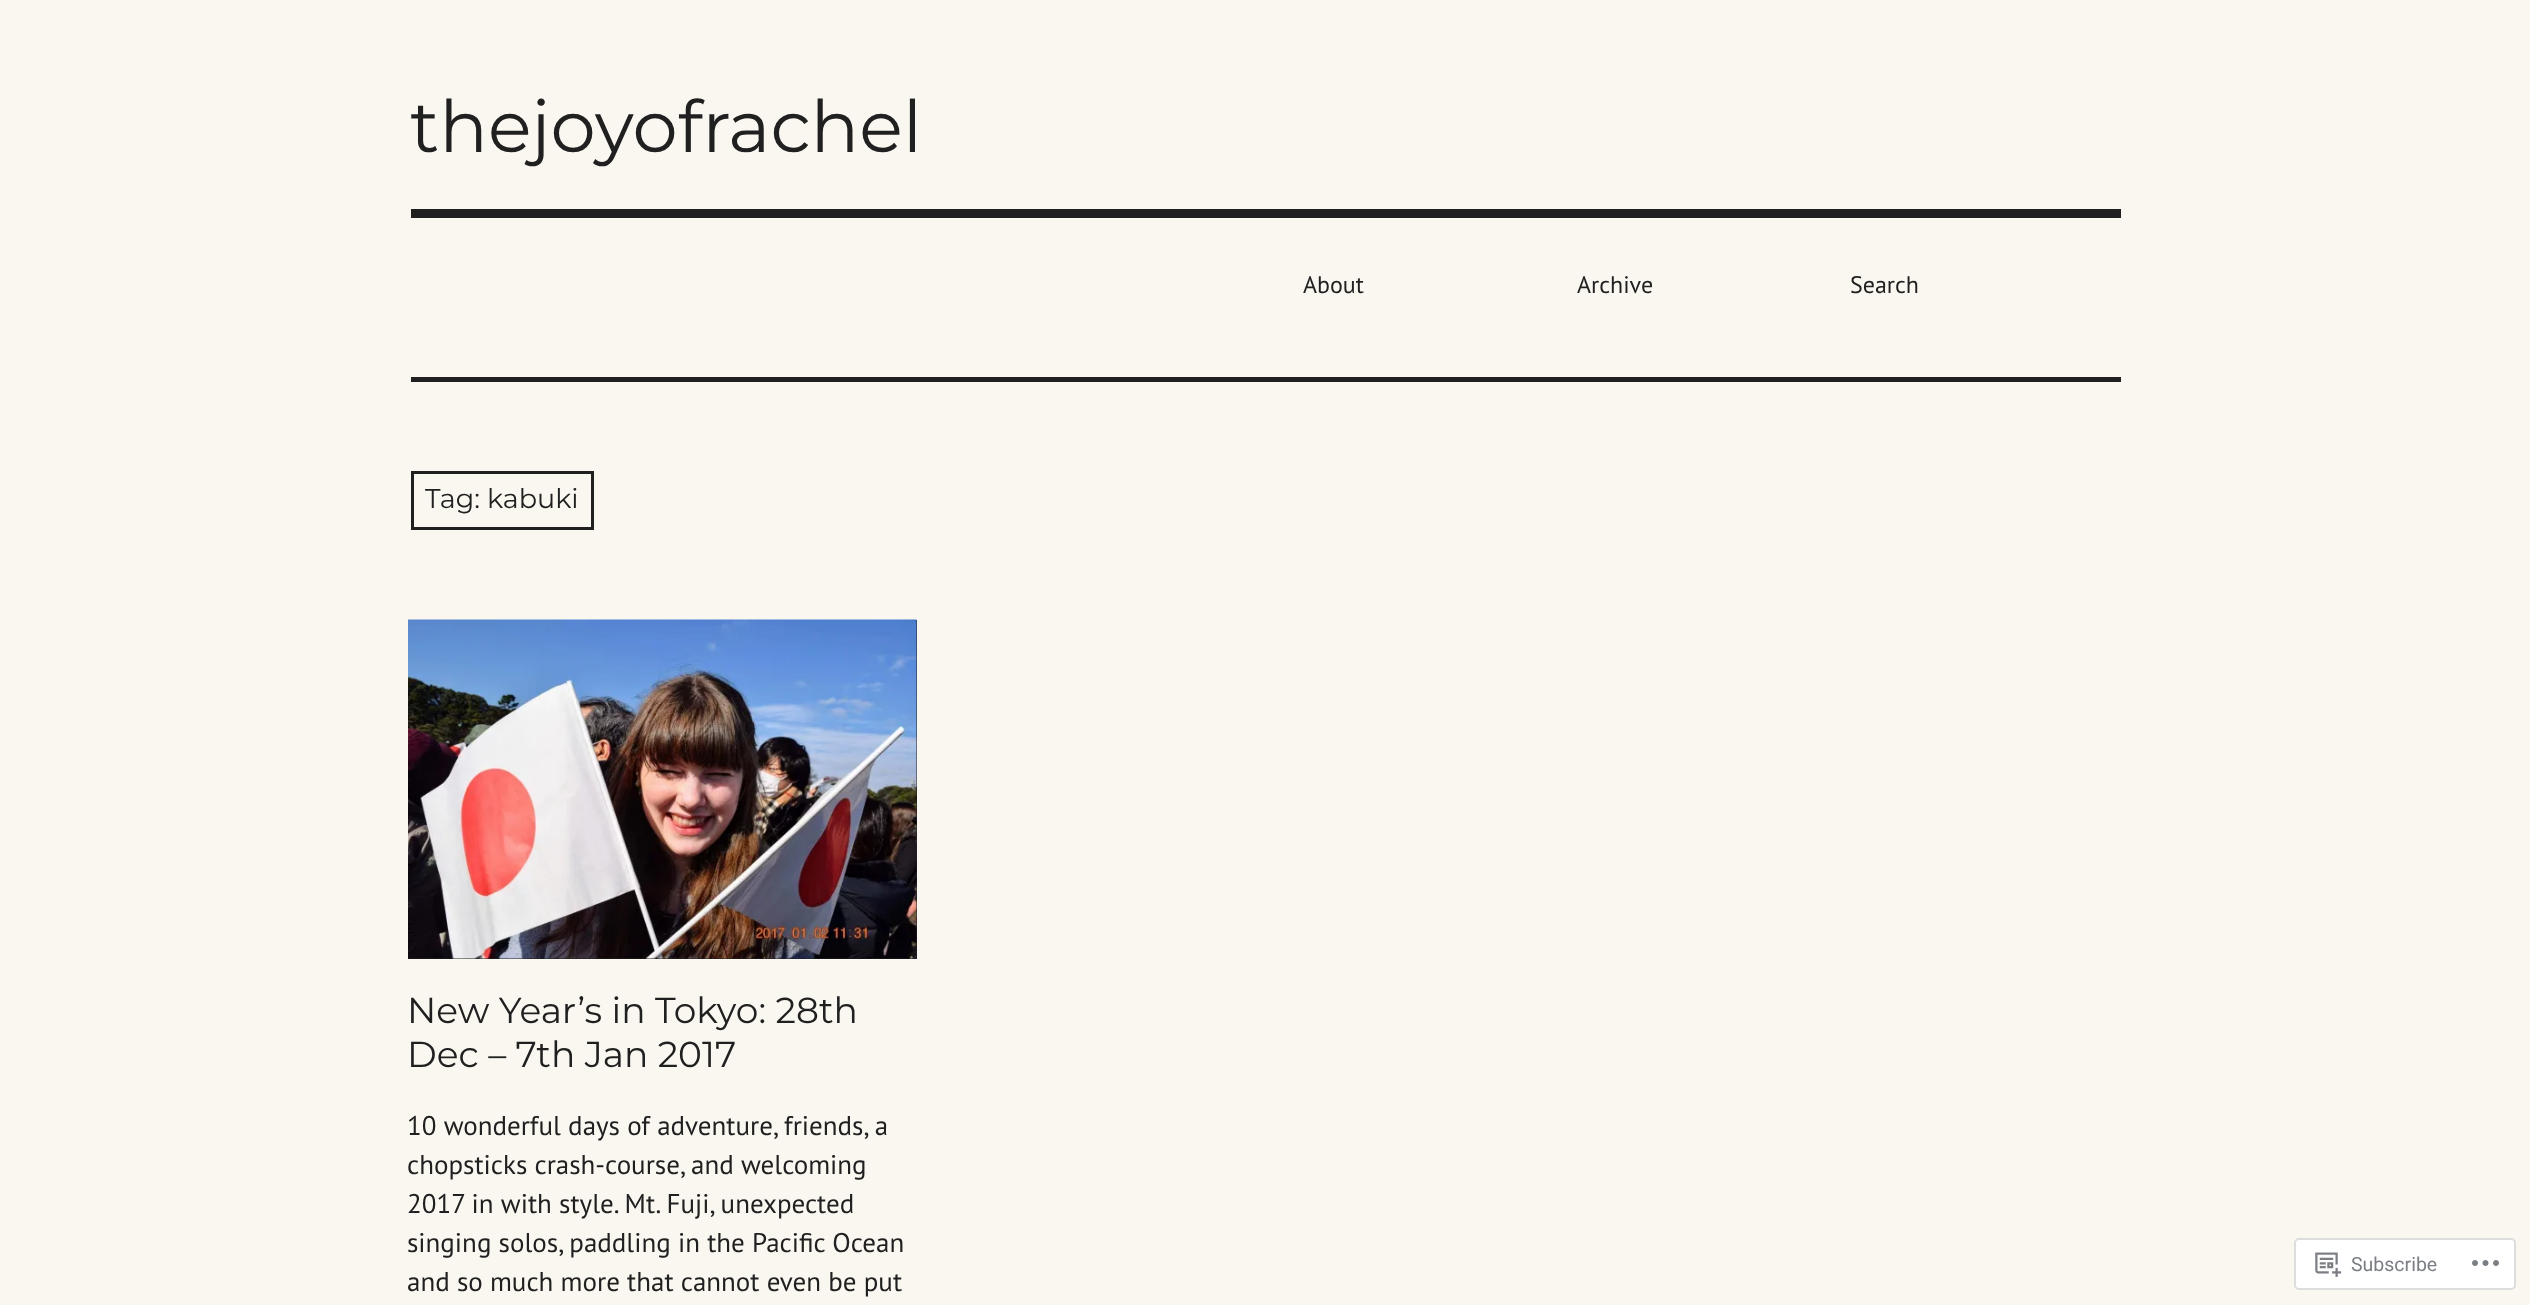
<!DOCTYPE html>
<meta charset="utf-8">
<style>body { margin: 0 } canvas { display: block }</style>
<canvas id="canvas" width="2530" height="1305"></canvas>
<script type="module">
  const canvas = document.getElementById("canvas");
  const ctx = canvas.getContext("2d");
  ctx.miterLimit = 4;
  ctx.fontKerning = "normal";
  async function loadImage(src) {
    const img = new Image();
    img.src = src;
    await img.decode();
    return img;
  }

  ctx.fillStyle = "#f9f7f0";
  ctx.fillRect(0, 0, 2530, 1305);
  ctx.fillStyle = "#212020";
  ctx.fillRect(411, 209, 1710, 9);
  ctx.font = "100 72px Montserrat";
  ctx.fillText("thejoyofrachel", 410, 152);
  ctx.font = "24px PT Sans";
  ctx.fillText("About", 1303, 293);
  ctx.fillText("Archive", 1577, 293);
  ctx.fillText("Search", 1850, 293);
  ctx.fillRect(411, 377, 1710, 5);
  ctx.strokeStyle = "#212020";
  ctx.lineWidth = 3;
  ctx.strokeRect(412.5, 472.5, 180, 56);
  ctx.font = "100 27px Montserrat";
  ctx.fillText("Tag: kabuki", 425, 508);
  ctx.fillRect(408, 620, 509, 339);
  ctx.drawImage(await loadImage("img1.png"), 408, 619, 509, 340);
  ctx.font = "100 36px Montserrat";
  ctx.fillText("New Year’s in Tokyo: 28th", 407, 1023);
  ctx.fillText("Dec – 7th Jan 2017", 407, 1067);
  ctx.font = "27px PT Sans";
  ctx.fillText("10 wonderful days of adventure, friends, a", 407, 1135);
  ctx.fillText("chopsticks crash-course, and welcoming", 407, 1174);
  ctx.fillText("2017 in with style. Mt. Fuji, unexpected", 407, 1213);
  ctx.fillText("singing solos, paddling in the Pacific Ocean", 407, 1252);
  ctx.fillText("and so much more that cannot even be put", 407, 1291);
  ctx.fillStyle = "#ffffff";
  ctx.beginPath();
  ctx.roundRect(2295, 1239, 220, 50, 4);
  ctx.fill();
  ctx.strokeStyle = "#ddddde";
  ctx.lineWidth = 2;
  ctx.stroke();
  ctx.drawImage(await loadImage("img2.png"), 2315, 1252, 27, 25);
  ctx.font = "19.5px Roboto";
  ctx.fillStyle = "#7b7e84";
  ctx.fillText("Subscribe", 2351, 1271);
  ctx.drawImage(await loadImage("img3.png"), 2472, 1260, 27, 6);
</script>
